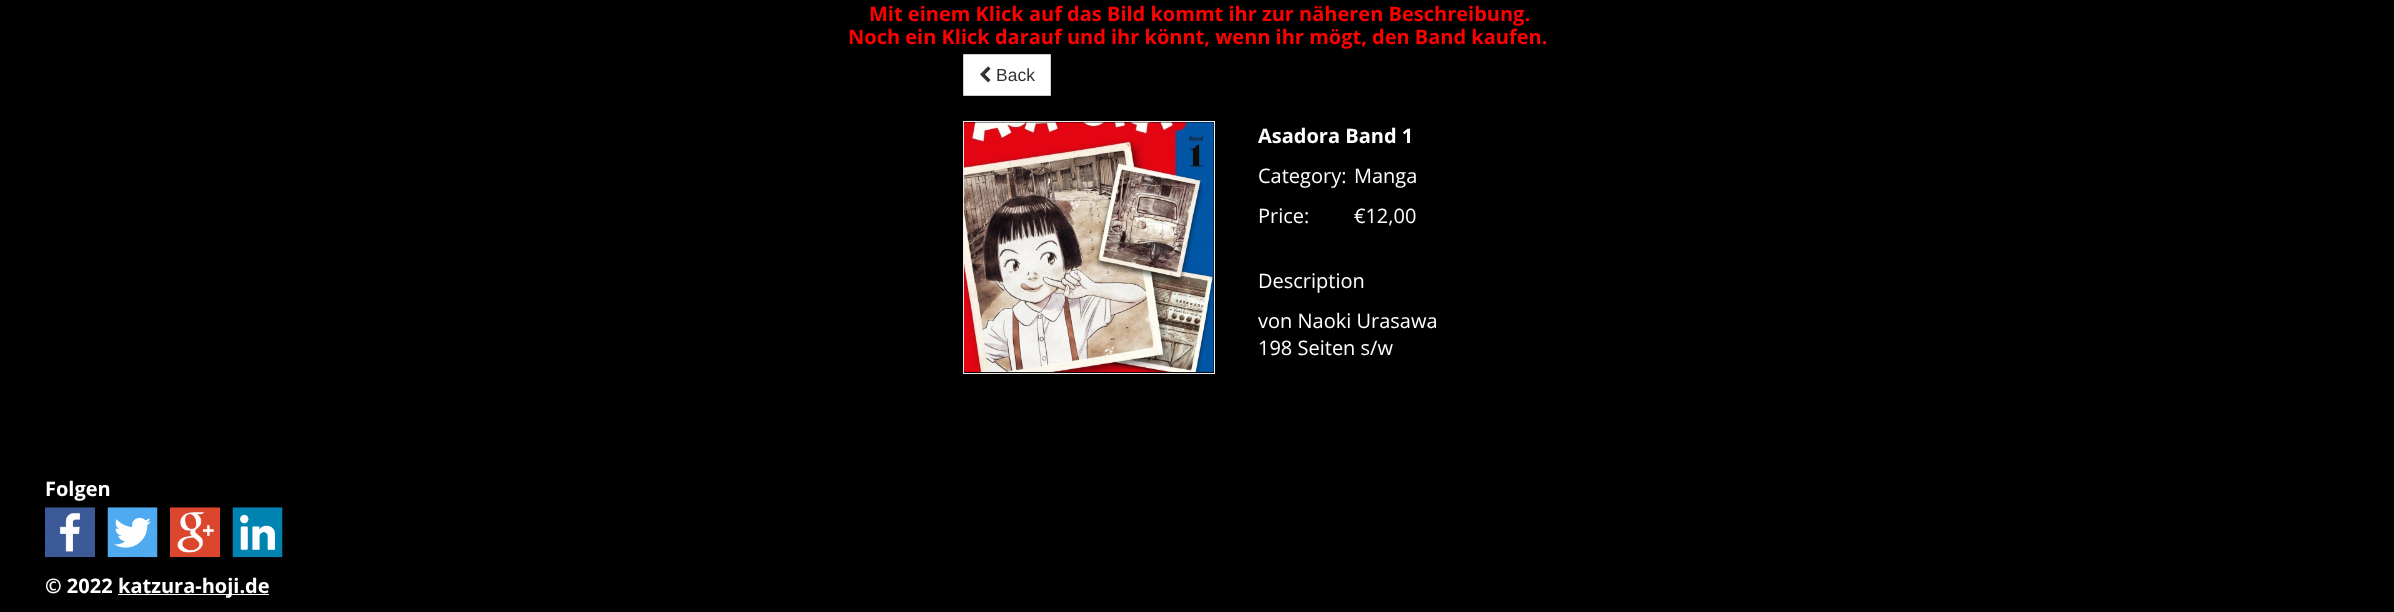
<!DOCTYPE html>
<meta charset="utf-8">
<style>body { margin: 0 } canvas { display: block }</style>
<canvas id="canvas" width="2394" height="612"></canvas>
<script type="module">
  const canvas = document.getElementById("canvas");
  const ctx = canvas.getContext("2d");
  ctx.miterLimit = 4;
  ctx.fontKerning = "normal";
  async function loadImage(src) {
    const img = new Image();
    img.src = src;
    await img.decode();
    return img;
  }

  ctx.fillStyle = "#000000";
  ctx.fillRect(0, 0, 2394, 612);
  ctx.font = "bold 20px Open Sans";
  ctx.fillStyle = "#ff0000";
  ctx.fillText("Mit einem Klick auf das Bild kommt ihr zur näheren Beschreibung.", 869, 21);
  ctx.fillText("Noch ein Klick darauf und ihr könnt, wenn ihr mögt, den Band kaufen.", 848, 44);
  ctx.fillStyle = "#ffffff";
  ctx.beginPath();
  ctx.rect(963.5, 54.5, 87, 41);
  ctx.fill();
  ctx.strokeStyle = "#cccccc";
  ctx.stroke();
  ctx.drawImage(await loadImage("img1.png"), 980, 66, 11, 17);
  ctx.font = "17.5px Liberation Sans";
  ctx.fillStyle = "#333333";
  ctx.fillText("Back", 996, 81);
  ctx.strokeStyle = "#eeeeee";
  ctx.strokeRect(963.5, 121.5, 251, 252);
  ctx.drawImage(await loadImage("img2.png"), 963, 122, 251, 251);
  ctx.font = "bold 20px Open Sans";
  ctx.fillStyle = "#ffffff";
  ctx.fillText("Asadora Band 1", 1258, 143);
  ctx.font = "20px Open Sans";
  ctx.fillText("Category:", 1258, 183);
  ctx.fillText("Manga", 1354, 183);
  ctx.fillText("Price:", 1258, 223);
  ctx.fillText("€12,00", 1354, 223);
  ctx.fillText("Description", 1258, 288);
  ctx.fillText("von Naoki Urasawa", 1258, 328);
  ctx.fillText("198 Seiten s/w", 1258, 355);
  ctx.font = "bold 20px Open Sans";
  ctx.fillText("Folgen", 45, 496);
  ctx.drawImage(await loadImage("img3.png"), 45, 507, 50, 51);
  ctx.drawImage(await loadImage("img4.png"), 107, 507, 51, 51);
  ctx.drawImage(await loadImage("img5.png"), 170, 507, 50, 51);
  ctx.drawImage(await loadImage("img6.png"), 232, 507, 51, 51);
  ctx.fillText("© 2022", 45, 593);
  ctx.fillStyle = "#fffaff";
  ctx.fillRect(118, 594, 151, 1);
  ctx.fillStyle = "#ffffff";
  ctx.fillText("katzura-hoji.de", 118, 593);
</script>
